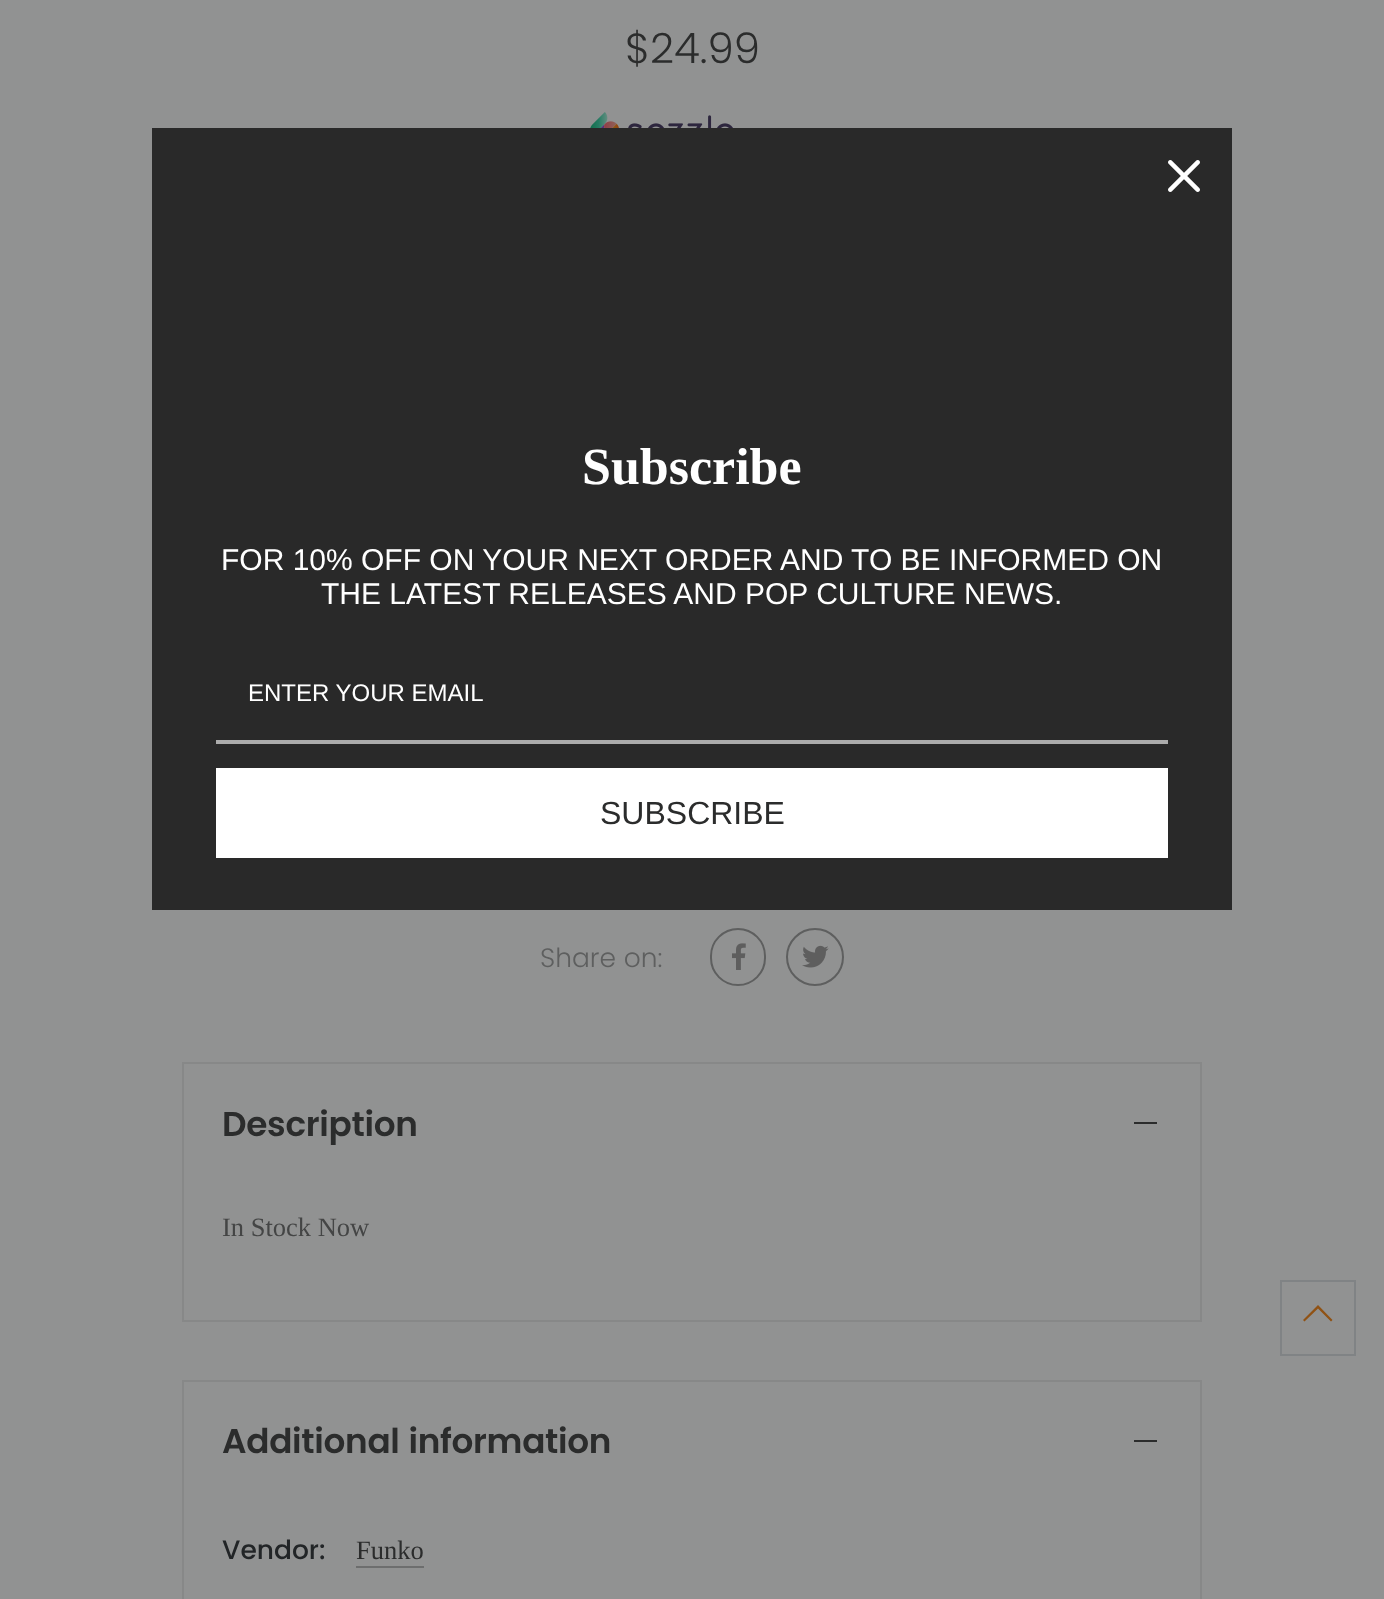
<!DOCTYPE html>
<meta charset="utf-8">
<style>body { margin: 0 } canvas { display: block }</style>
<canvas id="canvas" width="1384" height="1599"></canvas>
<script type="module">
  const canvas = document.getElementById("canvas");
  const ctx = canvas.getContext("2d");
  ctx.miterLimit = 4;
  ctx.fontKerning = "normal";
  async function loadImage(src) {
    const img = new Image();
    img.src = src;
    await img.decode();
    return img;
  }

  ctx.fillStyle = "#919292";
  ctx.fillRect(0, 0, 1384, 1599);
  ctx.font = "300 42px Poppins";
  ctx.fillStyle = "#2b2c2c";
  ctx.fillText("$24.99", 625, 63);
  ctx.drawImage(await loadImage("img1.png"), 590, 112, 143, 16);
  ctx.font = "300 26.5px Poppins";
  ctx.fillStyle = "#5e5f5f";
  ctx.fillText("Share on:", 540, 967);
  ctx.beginPath();
  ctx.roundRect(711, 929, 54, 56, 27);
  ctx.strokeStyle = "#5e5f5f";
  ctx.lineWidth = 2;
  ctx.stroke();
  ctx.drawImage(await loadImage("img2.png"), 732, 943, 14, 27);
  ctx.beginPath();
  ctx.arc(815, 957, 28, 0, Math.PI * 2);
  ctx.stroke();
  ctx.drawImage(await loadImage("img3.png"), 802, 945, 27, 23);
  ctx.strokeStyle = "#878888";
  ctx.strokeRect(183, 1063, 1018, 258);
  ctx.letterSpacing = "-0.3px";
  ctx.font = "600 34.25px Poppins";
  ctx.fillStyle = "#2b2c2c";
  ctx.fillText("Description", 222, 1136);
  ctx.fillRect(1134, 1122, 23, 2);
  ctx.letterSpacing = "0px";
  ctx.font = "26.5px Liberation Serif";
  ctx.fillStyle = "#444545";
  ctx.fillText("In Stock Now", 222, 1236);
  ctx.strokeRect(183, 1381, 1018, 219);
  ctx.letterSpacing = "-0.3px";
  ctx.font = "600 34.25px Poppins";
  ctx.fillStyle = "#2b2c2c";
  ctx.fillText("Additional information", 222, 1453);
  ctx.fillRect(1134, 1440, 23, 2);
  ctx.letterSpacing = "0px";
  ctx.font = "500 26.5px Poppins";
  ctx.fillStyle = "#222527";
  ctx.fillText("Vendor:", 222, 1559);
  ctx.font = "26.5px Liberation Serif";
  ctx.fillStyle = "#2b2c2c";
  ctx.fillText("Funko", 356, 1559);
  ctx.fillStyle = "#6d6e6e";
  ctx.fillRect(356, 1566, 68, 2);
  ctx.fillStyle = "#292929";
  ctx.fillRect(152, 128, 1080, 782);
  ctx.drawImage(await loadImage("img4.png"), 1168, 160, 32, 32);
  ctx.font = "bold 52px Liberation Serif";
  ctx.fillStyle = "#ffffff";
  ctx.fillText("Subscribe", 582, 484);
  ctx.font = "30px Liberation Sans";
  ctx.fillText("FOR 10% OFF ON YOUR NEXT ORDER AND TO BE INFORMED ON", 221, 570);
  ctx.fillText("THE LATEST RELEASES AND POP CULTURE NEWS.", 321, 604);
  ctx.fillStyle = "#acacac";
  ctx.fillRect(216, 740, 952, 4);
  ctx.font = "24px Liberation Sans";
  ctx.fillStyle = "#ffffff";
  ctx.fillText("ENTER YOUR EMAIL", 248, 701);
  ctx.fillRect(216, 768, 952, 90);
  ctx.font = "32px Liberation Sans";
  ctx.fillStyle = "#2b2c2c";
  ctx.fillText("SUBSCRIBE", 600, 824);
  ctx.strokeStyle = "#808385";
  ctx.strokeRect(1281, 1281, 74, 74);
  ctx.fillStyle = "#905214";
  ctx.beginPath();
  ctx.moveTo(1318, 1305);
  ctx.lineTo(1332.5, 1320);
  ctx.lineTo(1331, 1321.5);
  ctx.lineTo(1318, 1308.5);
  ctx.lineTo(1304.5, 1321.5);
  ctx.lineTo(1303, 1320);
  ctx.closePath();
  ctx.fill();
</script>
